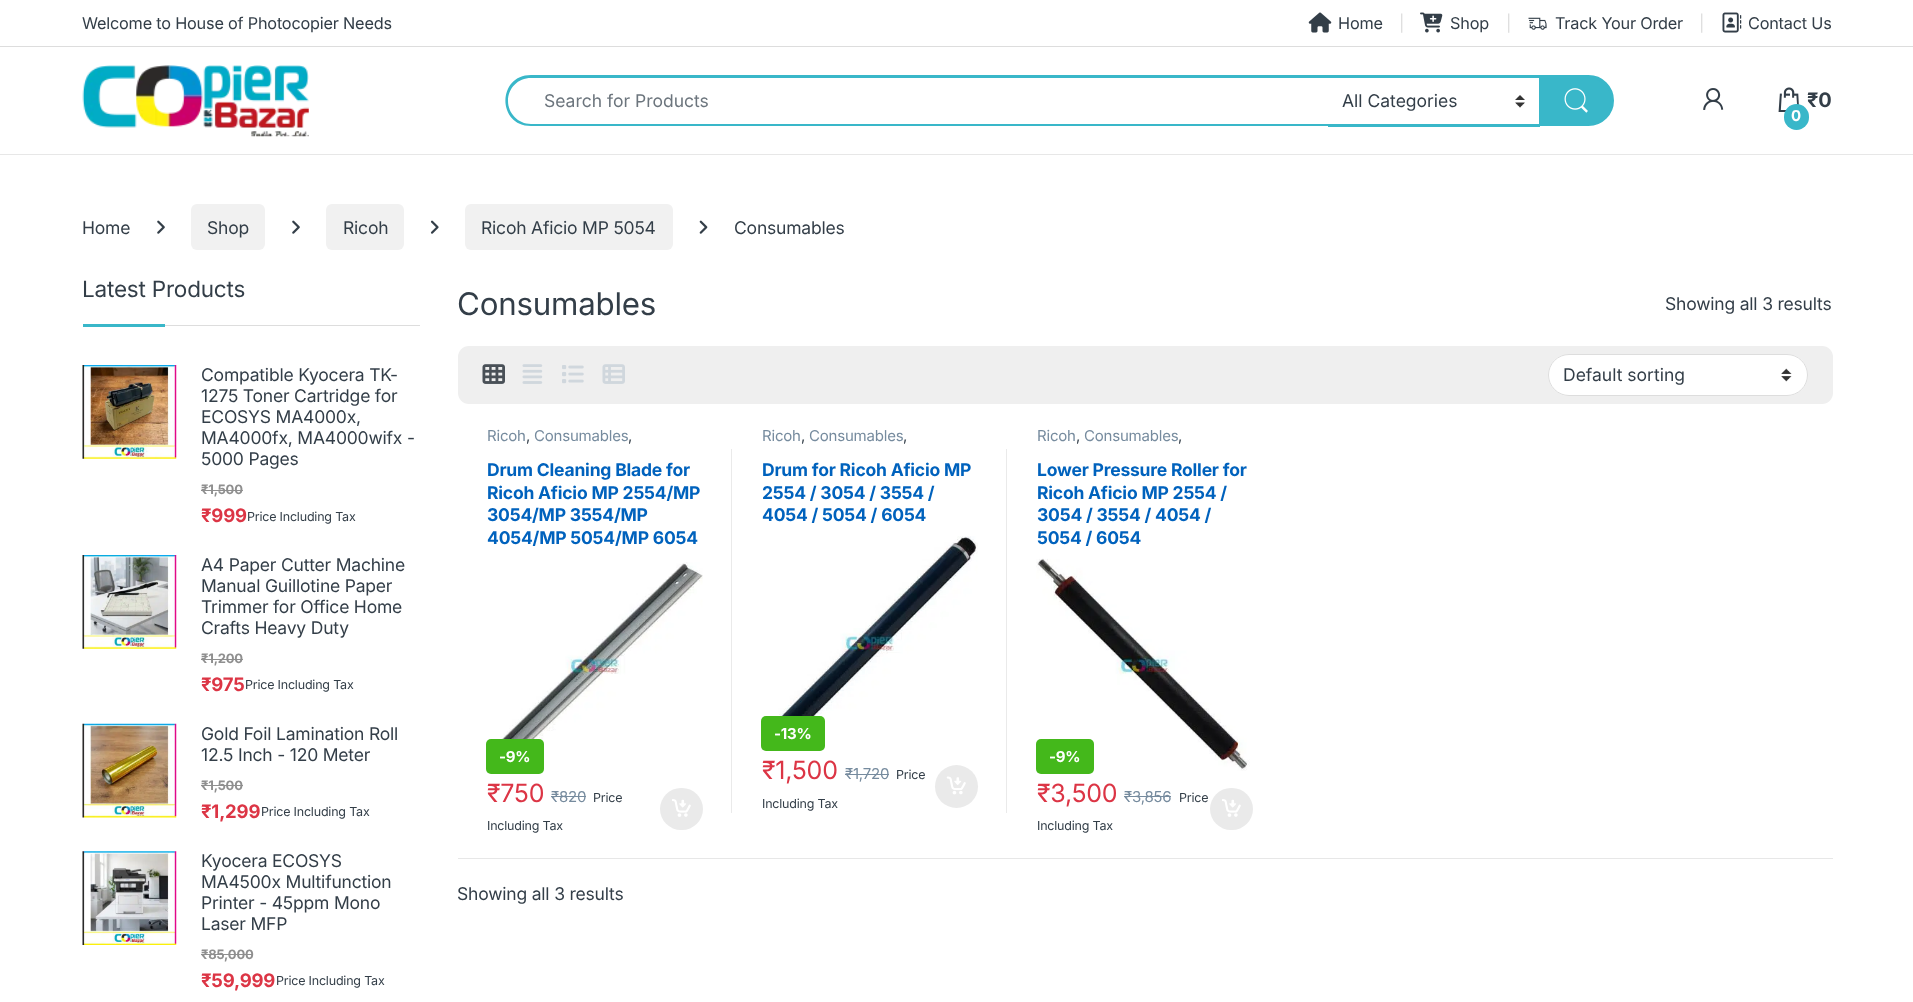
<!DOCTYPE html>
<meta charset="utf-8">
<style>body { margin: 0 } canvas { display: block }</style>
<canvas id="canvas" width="1913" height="1002"></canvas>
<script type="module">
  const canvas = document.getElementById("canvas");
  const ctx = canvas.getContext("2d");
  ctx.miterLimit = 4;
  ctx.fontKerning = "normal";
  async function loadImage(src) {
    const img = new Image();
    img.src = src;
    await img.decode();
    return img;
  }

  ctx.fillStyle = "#ffffff";
  ctx.fillRect(0, 0, 1913, 1002);
  ctx.fillStyle = "#dddddd";
  ctx.fillRect(0, 46, 1913, 1);
  ctx.letterSpacing = "-0.2px";
  ctx.font = "16.25px Inter";
  ctx.fillStyle = "#333e48";
  ctx.fillText("Welcome to House of Photocopier Needs", 82, 29);
  ctx.drawImage(await loadImage("img1.png"), 1308, 12, 24, 21);
  ctx.fillText("Home", 1338, 29);
  ctx.fillStyle = "#dddddd";
  ctx.fillText("|", 1399, 29);
  ctx.drawImage(await loadImage("img2.png"), 1420, 12, 23, 21);
  ctx.fillStyle = "#333e48";
  ctx.fillText("Shop", 1450, 29);
  ctx.fillStyle = "#dddddd";
  ctx.fillText("|", 1506, 29);
  ctx.drawImage(await loadImage("img3.png"), 1528, 17, 19, 13);
  ctx.fillStyle = "#333e48";
  ctx.fillText("Track Your Order", 1555, 29);
  ctx.fillStyle = "#dddddd";
  ctx.fillText("|", 1699, 29);
  ctx.drawImage(await loadImage("img4.png"), 1722, 12, 20, 21);
  ctx.fillStyle = "#333e48";
  ctx.fillText("Contact Us", 1748, 29);
  ctx.fillStyle = "#e7e7e7";
  ctx.fillRect(0, 154, 1913, 1);
  ctx.drawImage(await loadImage("img5.png"), 82, 65, 227, 72);
  ctx.fillStyle = "#39b7c9";
  ctx.beginPath();
  ctx.moveTo(531, 75);
  ctx.lineTo(1329, 75);
  ctx.lineTo(1329, 126);
  ctx.lineTo(531, 126);
  ctx.bezierCurveTo(497, 126, 497, 75, 531, 75);
  ctx.closePath();
  ctx.moveTo(531, 78);
  ctx.lineTo(1329, 78);
  ctx.lineTo(1329, 124);
  ctx.lineTo(531, 124);
  ctx.bezierCurveTo(518, 124, 508, 113, 508, 101);
  ctx.bezierCurveTo(508, 88, 518, 78, 531, 78);
  ctx.closePath();
  ctx.fill("evenodd");
  ctx.letterSpacing = "0px";
  ctx.font = "17.5px Inter";
  ctx.fillStyle = "#6c757d";
  ctx.fillText("Search for Products", 544, 107);
  ctx.fillStyle = "#39b7c9";
  ctx.fillRect(1328, 75, 212, 3);
  ctx.fillRect(1328, 124, 212, 3);
  ctx.drawImage(await loadImage("img6.png"), 1515, 95, 10, 13);
  ctx.fillStyle = "#333e48";
  ctx.fillText("All Categories", 1342, 107);
  ctx.fillStyle = "#39b7c9";
  ctx.beginPath();
  ctx.roundRect(1540.5, 76.5, 72, 48, [0, 24, 24, 0]);
  ctx.fill();
  ctx.strokeStyle = "#39b7c9";
  ctx.lineWidth = 3;
  ctx.stroke();
  ctx.drawImage(await loadImage("img7.png"), 1564, 88, 24, 25);
  ctx.drawImage(await loadImage("img8.png"), 1703, 88, 21, 22);
  ctx.drawImage(await loadImage("img9.png"), 1778, 87, 21, 25);
  ctx.letterSpacing = "-0.2px";
  ctx.font = "bold 20px Inter";
  ctx.fillStyle = "#333e48";
  ctx.fillText("₹0", 1807, 107);
  ctx.fillStyle = "#39b7c9";
  ctx.beginPath();
  ctx.roundRect(1784, 104, 25, 26, 12.5);
  ctx.fill();
  ctx.font = "bold 15px Inter";
  ctx.fillStyle = "#ffffff";
  ctx.fillText("0", 1791, 121);
  ctx.font = "17.5px Inter";
  ctx.fillStyle = "#333e48";
  ctx.fillText("Home", 82, 234);
  ctx.drawImage(await loadImage("img10.png"), 157, 220, 8, 14);
  ctx.fillStyle = "#f1f1f1";
  ctx.beginPath();
  ctx.roundRect(191, 204, 74, 46, 6);
  ctx.fill();
  ctx.fillStyle = "#333e48";
  ctx.fillText("Shop", 207, 234);
  ctx.drawImage(await loadImage("img10.png"), 292, 220, 8, 14);
  ctx.fillStyle = "#f1f1f1";
  ctx.beginPath();
  ctx.roundRect(326, 204, 78, 46, 6);
  ctx.fill();
  ctx.fillStyle = "#333e48";
  ctx.fillText("Ricoh", 343, 234);
  ctx.drawImage(await loadImage("img11.png"), 430, 220, 9, 14);
  ctx.fillStyle = "#f1f1f1";
  ctx.beginPath();
  ctx.roundRect(465, 204, 208, 46, 6);
  ctx.fill();
  ctx.fillStyle = "#333e48";
  ctx.fillText("Ricoh Aficio MP 5054", 481, 234);
  ctx.drawImage(await loadImage("img12.png"), 699, 220, 9, 14);
  ctx.fillText("Consumables", 734, 234);
  ctx.fillStyle = "#dddddd";
  ctx.fillRect(165, 325, 255, 1);
  ctx.font = "22.5px Inter";
  ctx.fillStyle = "#333e48";
  ctx.fillText("Latest Products", 82, 297);
  ctx.fillStyle = "#39b7c9";
  ctx.fillRect(83, 324, 82, 3);
  ctx.drawImage(await loadImage("img13.png"), 82, 365, 95, 94);
  ctx.font = "17.5px Inter";
  ctx.fillStyle = "#333e48";
  ctx.fillText("Compatible Kyocera TK-", 201, 381);
  ctx.fillText("1275 Toner Cartridge for", 201, 402);
  ctx.fillText("ECOSYS MA4000x,", 201, 423);
  ctx.fillText("MA4000fx, MA4000wifx -", 201, 444);
  ctx.fillText("5000 Pages", 201, 465);
  ctx.font = "bold 13px Inter";
  ctx.fillStyle = "#8f8f8f";
  ctx.fillText("₹1,500", 201, 494);
  ctx.fillRect(201, 490, 42, 1);
  ctx.font = "bold 18.5px Inter";
  ctx.fillStyle = "#dc3545";
  ctx.fillText("₹999", 201, 522);
  ctx.font = "12.5px Inter";
  ctx.fillStyle = "#333e48";
  ctx.fillText("Price Including Tax", 247, 521);
  ctx.drawImage(await loadImage("img14.png"), 82, 555, 95, 94);
  ctx.font = "17.5px Inter";
  ctx.fillText("A4 Paper Cutter Machine", 201, 571);
  ctx.fillText("Manual Guillotine Paper", 201, 592);
  ctx.fillText("Trimmer for Office Home", 201, 613);
  ctx.fillText("Crafts Heavy Duty", 201, 634);
  ctx.font = "bold 13px Inter";
  ctx.fillStyle = "#8f8f8f";
  ctx.fillText("₹1,200", 201, 663);
  ctx.fillRect(201, 659, 42, 1);
  ctx.font = "bold 18.5px Inter";
  ctx.fillStyle = "#dc3545";
  ctx.fillText("₹975", 201, 691);
  ctx.font = "12.5px Inter";
  ctx.fillStyle = "#333e48";
  ctx.fillText("Price Including Tax", 245, 689);
  ctx.drawImage(await loadImage("img15.png"), 82, 723, 95, 95);
  ctx.font = "17.5px Inter";
  ctx.fillText("Gold Foil Lamination Roll", 201, 740);
  ctx.fillText("12.5 Inch - 120 Meter", 201, 761);
  ctx.font = "bold 13px Inter";
  ctx.fillStyle = "#8f8f8f";
  ctx.fillText("₹1,500", 201, 790);
  ctx.fillRect(201, 785, 42, 1);
  ctx.font = "bold 18.5px Inter";
  ctx.fillStyle = "#dc3545";
  ctx.fillText("₹1,299", 201, 818);
  ctx.font = "12.5px Inter";
  ctx.fillStyle = "#333e48";
  ctx.fillText("Price Including Tax", 261, 816);
  ctx.drawImage(await loadImage("img16.png"), 82, 851, 95, 94);
  ctx.font = "17.5px Inter";
  ctx.fillText("Kyocera ECOSYS", 201, 867);
  ctx.fillText("MA4500x Multifunction", 201, 888);
  ctx.fillText("Printer - 45ppm Mono", 201, 909);
  ctx.fillText("Laser MFP", 201, 930);
  ctx.font = "bold 13px Inter";
  ctx.fillStyle = "#8f8f8f";
  ctx.fillText("₹85,000", 201, 959);
  ctx.fillRect(201, 954, 52, 1);
  ctx.font = "bold 18.5px Inter";
  ctx.fillStyle = "#dc3545";
  ctx.fillText("₹59,999", 201, 987);
  ctx.font = "12.5px Inter";
  ctx.fillStyle = "#333e48";
  ctx.fillText("Price Including Tax", 276, 985);
  ctx.font = "31.25px Inter";
  ctx.fillText("Consumables", 457, 315);
  ctx.font = "17.5px Inter";
  ctx.fillText("Showing all 3 results", 1665, 310);
  ctx.fillStyle = "#efefef";
  ctx.beginPath();
  ctx.roundRect(458, 346, 1375, 58, 11);
  ctx.fill();
  ctx.drawImage(await loadImage("img17.png"), 482, 364, 23, 20);
  ctx.drawImage(await loadImage("img18.png"), 522, 364, 21, 20);
  ctx.drawImage(await loadImage("img19.png"), 562, 365, 22, 19);
  ctx.drawImage(await loadImage("img20.png"), 602, 364, 23, 20);
  ctx.fillStyle = "#ffffff";
  ctx.beginPath();
  ctx.roundRect(1548, 354, 260, 42, 21);
  ctx.fill();
  ctx.drawImage(await loadImage("img21.png"), 1781, 368, 11, 14);
  ctx.beginPath();
  ctx.roundRect(1548.5, 354.5, 259, 41, 20.5);
  ctx.strokeStyle = "#dddddd";
  ctx.lineWidth = 1;
  ctx.stroke();
  ctx.letterSpacing = "0px";
  ctx.fillStyle = "#333e48";
  ctx.fillText("Default sorting", 1563, 381);
  ctx.letterSpacing = "-0.2px";
  ctx.font = "15px Inter";
  ctx.fillStyle = "#768b9e";
  ctx.fillText("Ricoh", 487, 441);
  ctx.fillStyle = "#333e48";
  ctx.fillText(",", 526, 441);
  ctx.fillStyle = "#768b9e";
  ctx.fillText("Consumables", 534, 441);
  ctx.fillStyle = "#333e48";
  ctx.fillText(",", 628, 441);
  ctx.font = "bold 17.5px Inter";
  ctx.fillStyle = "#0062bd";
  ctx.fillText("Drum Cleaning Blade for", 487, 476);
  ctx.fillText("Ricoh Aficio MP 2554/MP", 487, 499);
  ctx.fillText("3054/MP 3554/MP", 487, 521);
  ctx.fillText("4054/MP 5054/MP 6054", 487, 544);
  ctx.drawImage(await loadImage("img22.png"), 486, 562, 217, 212);
  ctx.fillStyle = "#44b81b";
  ctx.beginPath();
  ctx.roundRect(486, 739, 58, 35, 5);
  ctx.fill();
  ctx.font = "bold 15px Inter";
  ctx.fillStyle = "#ffffff";
  ctx.fillText("-9%", 499, 762);
  ctx.font = "25px Inter";
  ctx.fillStyle = "#dc3545";
  ctx.fillText("₹750", 487, 802);
  ctx.font = "15px Inter";
  ctx.fillStyle = "#768b9e";
  ctx.fillText("₹820", 551, 802);
  ctx.fillRect(551, 796, 35, 1);
  ctx.font = "12.5px Inter";
  ctx.fillStyle = "#333e48";
  ctx.fillText("Price", 593, 802);
  ctx.fillText("Including Tax", 487, 830);
  ctx.fillStyle = "#eaeaea";
  ctx.beginPath();
  ctx.roundRect(660, 788, 43, 42, 21);
  ctx.fill();
  ctx.drawImage(await loadImage("img23.png"), 672, 799, 19, 18);
  ctx.fillRect(731, 449, 1, 364);
  ctx.font = "15px Inter";
  ctx.fillStyle = "#768b9e";
  ctx.fillText("Ricoh", 762, 441);
  ctx.fillStyle = "#333e48";
  ctx.fillText(",", 801, 441);
  ctx.fillStyle = "#768b9e";
  ctx.fillText("Consumables", 809, 441);
  ctx.fillStyle = "#333e48";
  ctx.fillText(",", 903, 441);
  ctx.font = "bold 17.5px Inter";
  ctx.fillStyle = "#0062bd";
  ctx.fillText("Drum for Ricoh Aficio MP", 762, 476);
  ctx.fillText("2554 / 3054 / 3554 /", 762, 499);
  ctx.fillText("4054 / 5054 / 6054", 762, 521);
  ctx.drawImage(await loadImage("img24.png"), 761, 536, 217, 215);
  ctx.fillStyle = "#44b81b";
  ctx.beginPath();
  ctx.roundRect(761, 716, 64, 35, 5);
  ctx.fill();
  ctx.font = "bold 15px Inter";
  ctx.fillStyle = "#ffffff";
  ctx.fillText("-13%", 774, 739);
  ctx.font = "25px Inter";
  ctx.fillStyle = "#dc3545";
  ctx.fillText("₹1,500", 762, 779);
  ctx.font = "15px Inter";
  ctx.fillStyle = "#768b9e";
  ctx.fillText("₹1,720", 845, 779);
  ctx.fillRect(845, 774, 44, 1);
  ctx.font = "12.5px Inter";
  ctx.fillStyle = "#333e48";
  ctx.fillText("Price", 896, 779);
  ctx.fillText("Including Tax", 762, 808);
  ctx.fillStyle = "#eaeaea";
  ctx.beginPath();
  ctx.arc(956.5, 786.5, 21.5, 0, Math.PI * 2);
  ctx.fill();
  ctx.drawImage(await loadImage("img25.png"), 946, 776, 20, 19);
  ctx.fillRect(1006, 449, 1, 364);
  ctx.font = "15px Inter";
  ctx.fillStyle = "#768b9e";
  ctx.fillText("Ricoh", 1037, 441);
  ctx.fillStyle = "#333e48";
  ctx.fillText(",", 1076, 441);
  ctx.fillStyle = "#768b9e";
  ctx.fillText("Consumables", 1084, 441);
  ctx.fillStyle = "#333e48";
  ctx.fillText(",", 1178, 441);
  ctx.font = "bold 17.5px Inter";
  ctx.fillStyle = "#0062bd";
  ctx.fillText("Lower Pressure Roller for", 1037, 476);
  ctx.fillText("Ricoh Aficio MP 2554 /", 1037, 499);
  ctx.fillText("3054 / 3554 / 4054 /", 1037, 521);
  ctx.fillText("5054 / 6054", 1037, 544);
  ctx.drawImage(await loadImage("img26.png"), 1036, 558, 214, 213);
  ctx.fillStyle = "#44b81b";
  ctx.beginPath();
  ctx.roundRect(1036, 739, 58, 35, 5);
  ctx.fill();
  ctx.font = "bold 15px Inter";
  ctx.fillStyle = "#ffffff";
  ctx.fillText("-9%", 1049, 762);
  ctx.font = "25px Inter";
  ctx.fillStyle = "#dc3545";
  ctx.fillText("₹3,500", 1037, 802);
  ctx.font = "15px Inter";
  ctx.fillStyle = "#768b9e";
  ctx.fillText("₹3,856", 1124, 802);
  ctx.fillRect(1124, 796, 47, 1);
  ctx.font = "12.5px Inter";
  ctx.fillStyle = "#333e48";
  ctx.fillText("Price", 1179, 802);
  ctx.fillText("Including Tax", 1037, 830);
  ctx.fillStyle = "#eaeaea";
  ctx.beginPath();
  ctx.roundRect(1210, 788, 43, 42, 21);
  ctx.fill();
  ctx.drawImage(await loadImage("img23.png"), 1222, 799, 19, 18);
  ctx.fillStyle = "#e7e7e7";
  ctx.fillRect(458, 858, 1375, 1);
  ctx.font = "17.5px Inter";
  ctx.fillStyle = "#333e48";
  ctx.fillText("Showing all 3 results", 457, 900);
</script>
